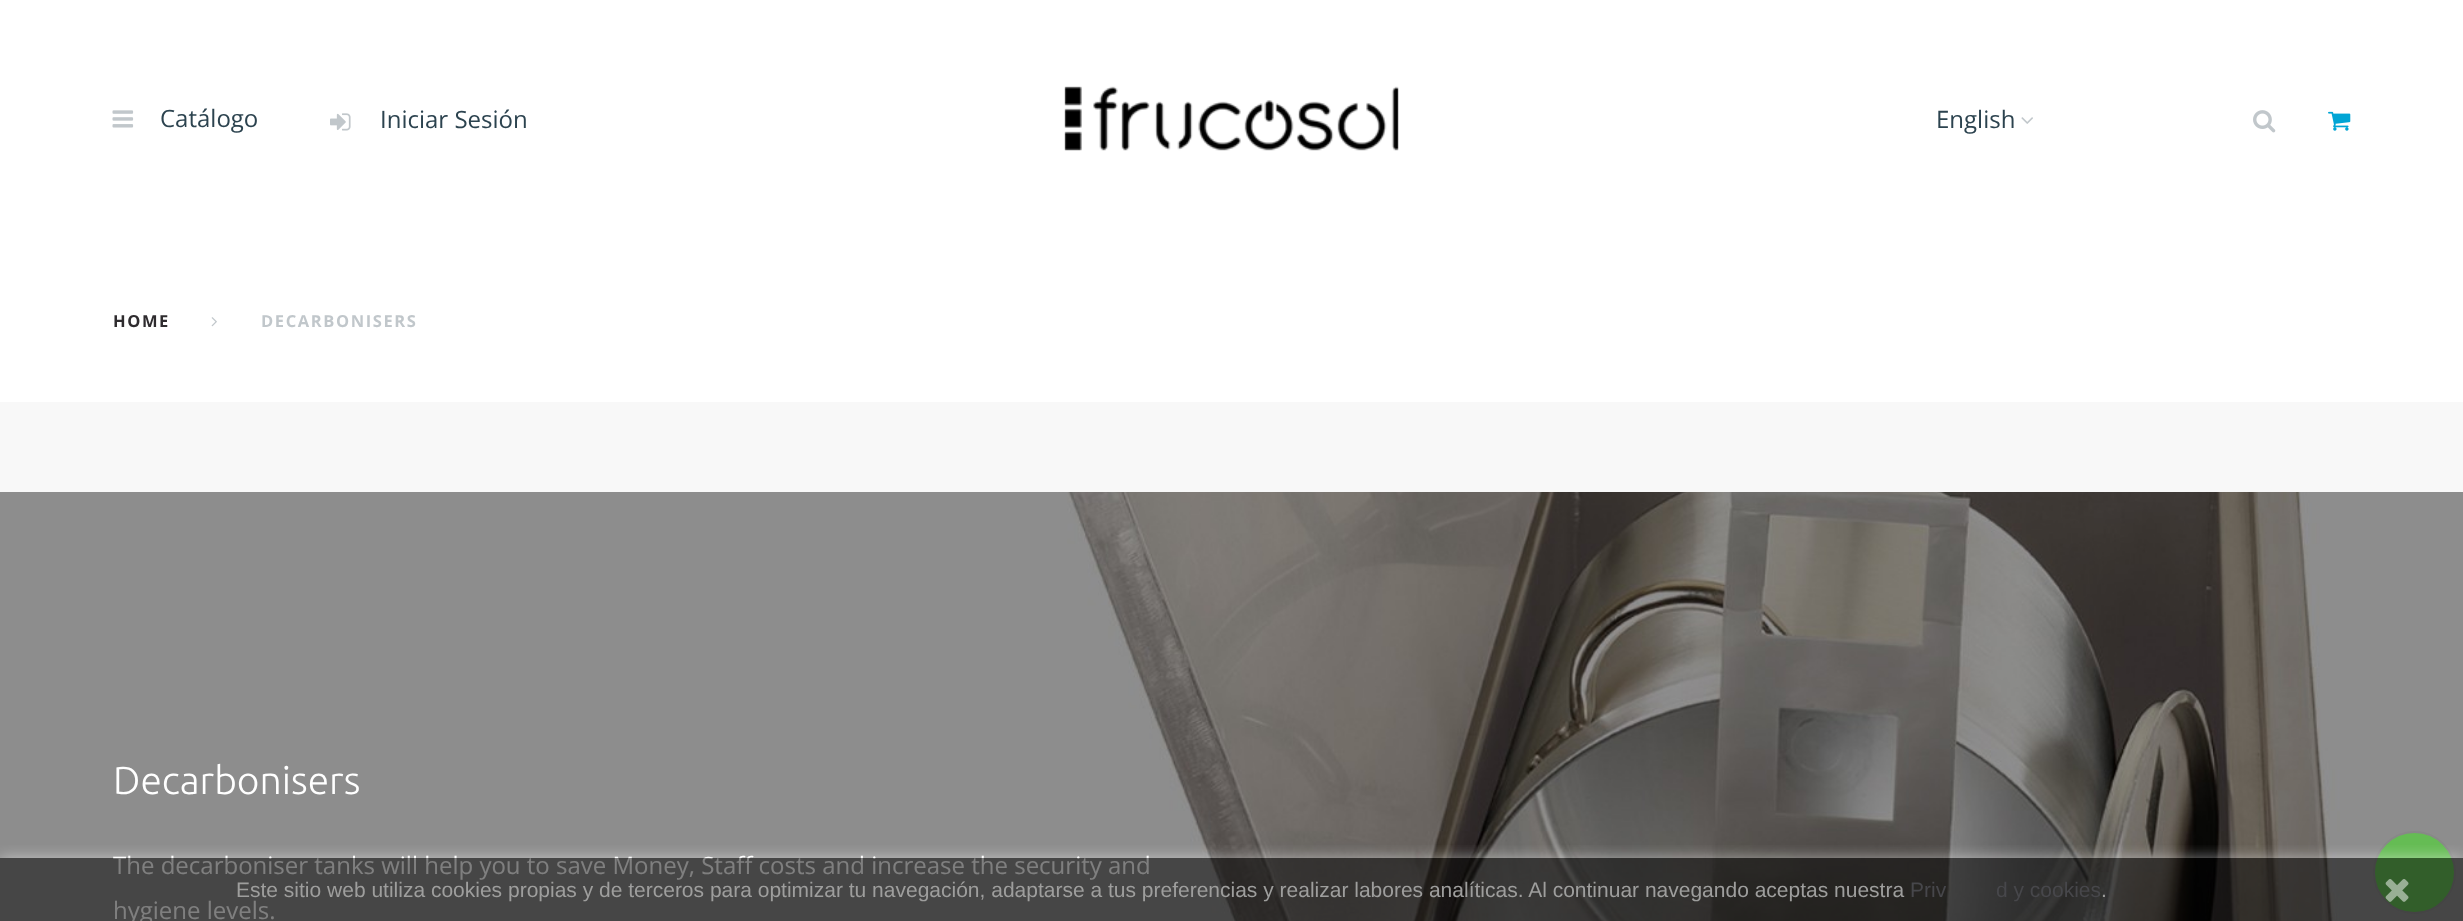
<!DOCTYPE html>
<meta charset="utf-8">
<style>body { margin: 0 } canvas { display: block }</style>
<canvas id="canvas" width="2463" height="921"></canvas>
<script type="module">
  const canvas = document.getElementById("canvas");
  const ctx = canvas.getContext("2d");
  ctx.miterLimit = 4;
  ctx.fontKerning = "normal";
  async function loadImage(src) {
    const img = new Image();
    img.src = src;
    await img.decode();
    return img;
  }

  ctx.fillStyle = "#ffffff";
  ctx.fillRect(0, 0, 2463, 921);
  ctx.drawImage(await loadImage("img1.png"), 112, 110, 22, 18);
  ctx.font = "24px Open Sans";
  ctx.fillStyle = "#2c434f";
  ctx.fillText("Catálogo", 160, 127);
  ctx.drawImage(await loadImage("img2.png"), 330, 113, 21, 18);
  ctx.fillText("Iniciar Sesión", 380, 128);
  ctx.drawImage(await loadImage("img3.png"), 1064, 86, 335, 65);
  ctx.fillText("English", 1936, 128);
  ctx.drawImage(await loadImage("img4.png"), 2021, 117, 12, 7);
  ctx.drawImage(await loadImage("img5.png"), 2253, 110, 23, 23);
  ctx.drawImage(await loadImage("img6.png"), 2328, 111, 23, 20);
  ctx.letterSpacing = "1.6px";
  ctx.font = "bold 16.5px Open Sans";
  ctx.fillStyle = "#2f2c2f";
  ctx.fillText("HOME", 113, 327);
  ctx.drawImage(await loadImage("img7.png"), 211, 317, 6, 10);
  ctx.fillStyle = "#c1c7cb";
  ctx.fillText("DECARBONISERS", 261, 327);
  ctx.fillStyle = "#f8f8f8";
  ctx.fillRect(0, 402, 2463, 90);
  ctx.drawImage(await loadImage("img8.png"), 0, 492, 2463, 429);
  ctx.letterSpacing = "0px";
  ctx.font = "300 39px Ubuntu";
  ctx.fillStyle = "#ffffff";
  ctx.fillText("Decarbonisers", 113, 794);
  ctx.font = "24px Open Sans";
  ctx.fillText("The decarboniser tanks will help you to save Money, Staff costs and increase the security and", 113, 874);
  ctx.fillText("hygiene levels.", 113, 919);
  ctx.fillStyle = "#65bc54";
  ctx.beginPath();
  ctx.arc(2414.5, 872.5, 40.5, 0, Math.PI * 2);
  ctx.fill();
  ctx.strokeStyle = "#888888";
  ctx.lineWidth = 2;
  ctx.stroke();
  ctx.save();
  ctx.beginPath();
  ctx.rect(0, 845, 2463, 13);
  ctx.clip();
  ctx.fillStyle = "rgba(255, 255, 255, 0.5)";
  ctx.filter = "blur(7.5px)";
  ctx.beginPath();
  ctx.rect(0, 858, 2463, 63);
  ctx.fill();
  ctx.filter = "none";
  ctx.restore();
  ctx.fillStyle = "rgba(0, 0, 0, 0.5)";
  ctx.fillRect(0, 858, 2463, 63);
  ctx.font = "21px Liberation Sans";
  ctx.fillStyle = "#9e9e9d";
  ctx.fillText("Este sitio web utiliza cookies propias y de terceros para optimizar tu navegación, adaptarse a tus preferencias y realizar labores analíticas. Al continuar navegando aceptas nuestra", 236, 897);
  ctx.fillStyle = "#47474b";
  ctx.fillText("Priv", 1910, 897);
  ctx.fillText("d y cookies", 1996, 897);
  ctx.fillStyle = "#9e9e9d";
  ctx.fillText(".", 2101, 897);
  ctx.drawImage(await loadImage("img9.png"), 2385, 879, 24, 23);
</script>
